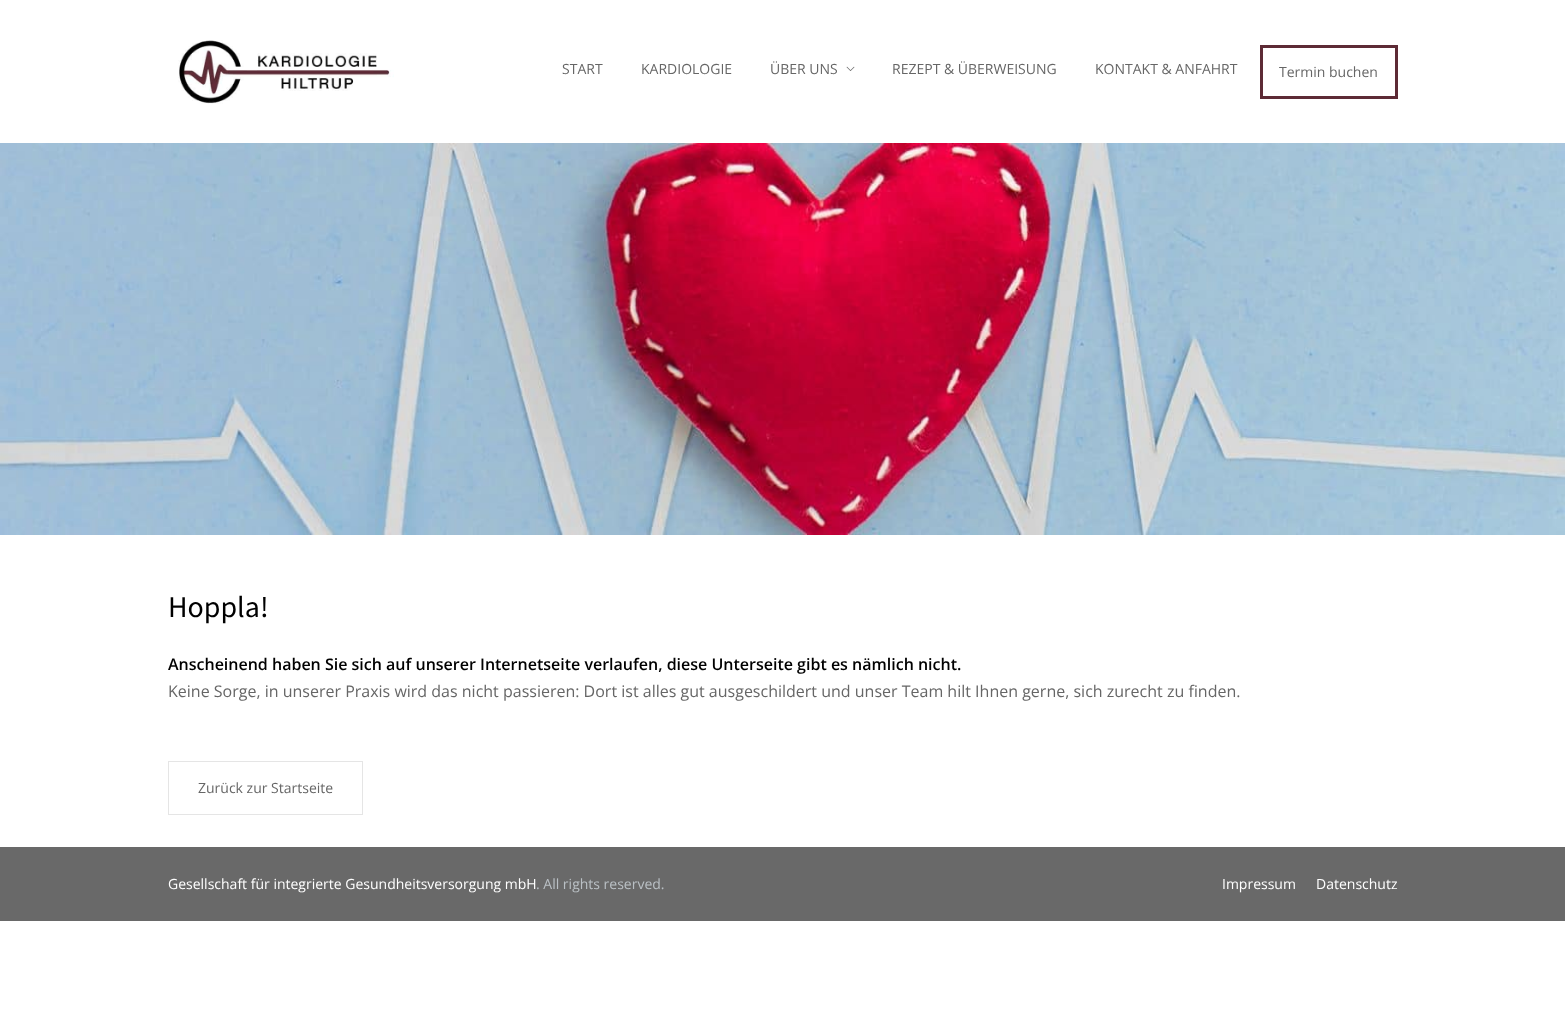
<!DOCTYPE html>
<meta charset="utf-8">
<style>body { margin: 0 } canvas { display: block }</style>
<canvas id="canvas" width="1565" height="1020"></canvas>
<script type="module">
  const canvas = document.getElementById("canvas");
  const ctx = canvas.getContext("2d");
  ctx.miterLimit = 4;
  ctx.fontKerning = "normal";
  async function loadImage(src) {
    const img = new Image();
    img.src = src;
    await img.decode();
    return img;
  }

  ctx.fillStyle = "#ffffff";
  ctx.fillRect(0, 0, 1565, 1020);
  ctx.drawImage(await loadImage("img1.png"), 178, 40, 216, 64);
  ctx.font = "14px Open Sans";
  ctx.fillStyle = "#666666";
  ctx.fillText("START", 562, 74);
  ctx.fillText("KARDIOLOGIE", 641, 74);
  ctx.fillText("ÜBER UNS", 770, 74);
  ctx.drawImage(await loadImage("img2.png"), 846, 66, 9, 5);
  ctx.fillText("REZEPT & ÜBERWEISUNG", 892, 74);
  ctx.fillText("KONTAKT & ANFAHRT", 1095, 74);
  ctx.strokeStyle = "#5d2a35";
  ctx.lineWidth = 3;
  ctx.strokeRect(1261.5, 46.5, 135, 51);
  ctx.fillText("Termin buchen", 1279, 77);
  ctx.drawImage(await loadImage("img3.png"), 0, 143, 1565, 392);
  ctx.font = "30px Source Sans Pro";
  ctx.fillStyle = "#000000";
  ctx.fillText("Hoppla!", 168, 617);
  ctx.font = "600 16px Open Sans";
  ctx.fillText("Anscheinend haben Sie sich auf unserer Internetseite verlaufen, diese Unterseite gibt es nämlich nicht.", 168, 670);
  ctx.font = "16px Open Sans";
  ctx.fillStyle = "#666666";
  ctx.fillText("Keine Sorge, in unserer Praxis wird das nicht passieren: Dort ist alles gut ausgeschildert und unser Team hilt Ihnen gerne, sich zurecht zu finden.", 168, 697);
  ctx.strokeStyle = "#e5e5e5";
  ctx.lineWidth = 1;
  ctx.strokeRect(168.5, 761.5, 194, 53);
  ctx.font = "14px Open Sans";
  ctx.fillText("Zurück zur Startseite", 198, 793);
  ctx.fillStyle = "#696969";
  ctx.fillRect(0, 847, 1565, 74);
  ctx.fillStyle = "#ffffff";
  ctx.fillText("Gesellschaft für integrierte Gesundheitsversorgung mbH", 168, 889);
  ctx.fillStyle = "#bac0c5";
  ctx.fillText(". All rights reserved.", 536, 889);
  ctx.fillStyle = "#ffffff";
  ctx.fillText("Impressum", 1222, 889);
  ctx.fillText("Datenschutz", 1316, 889);
</script>
